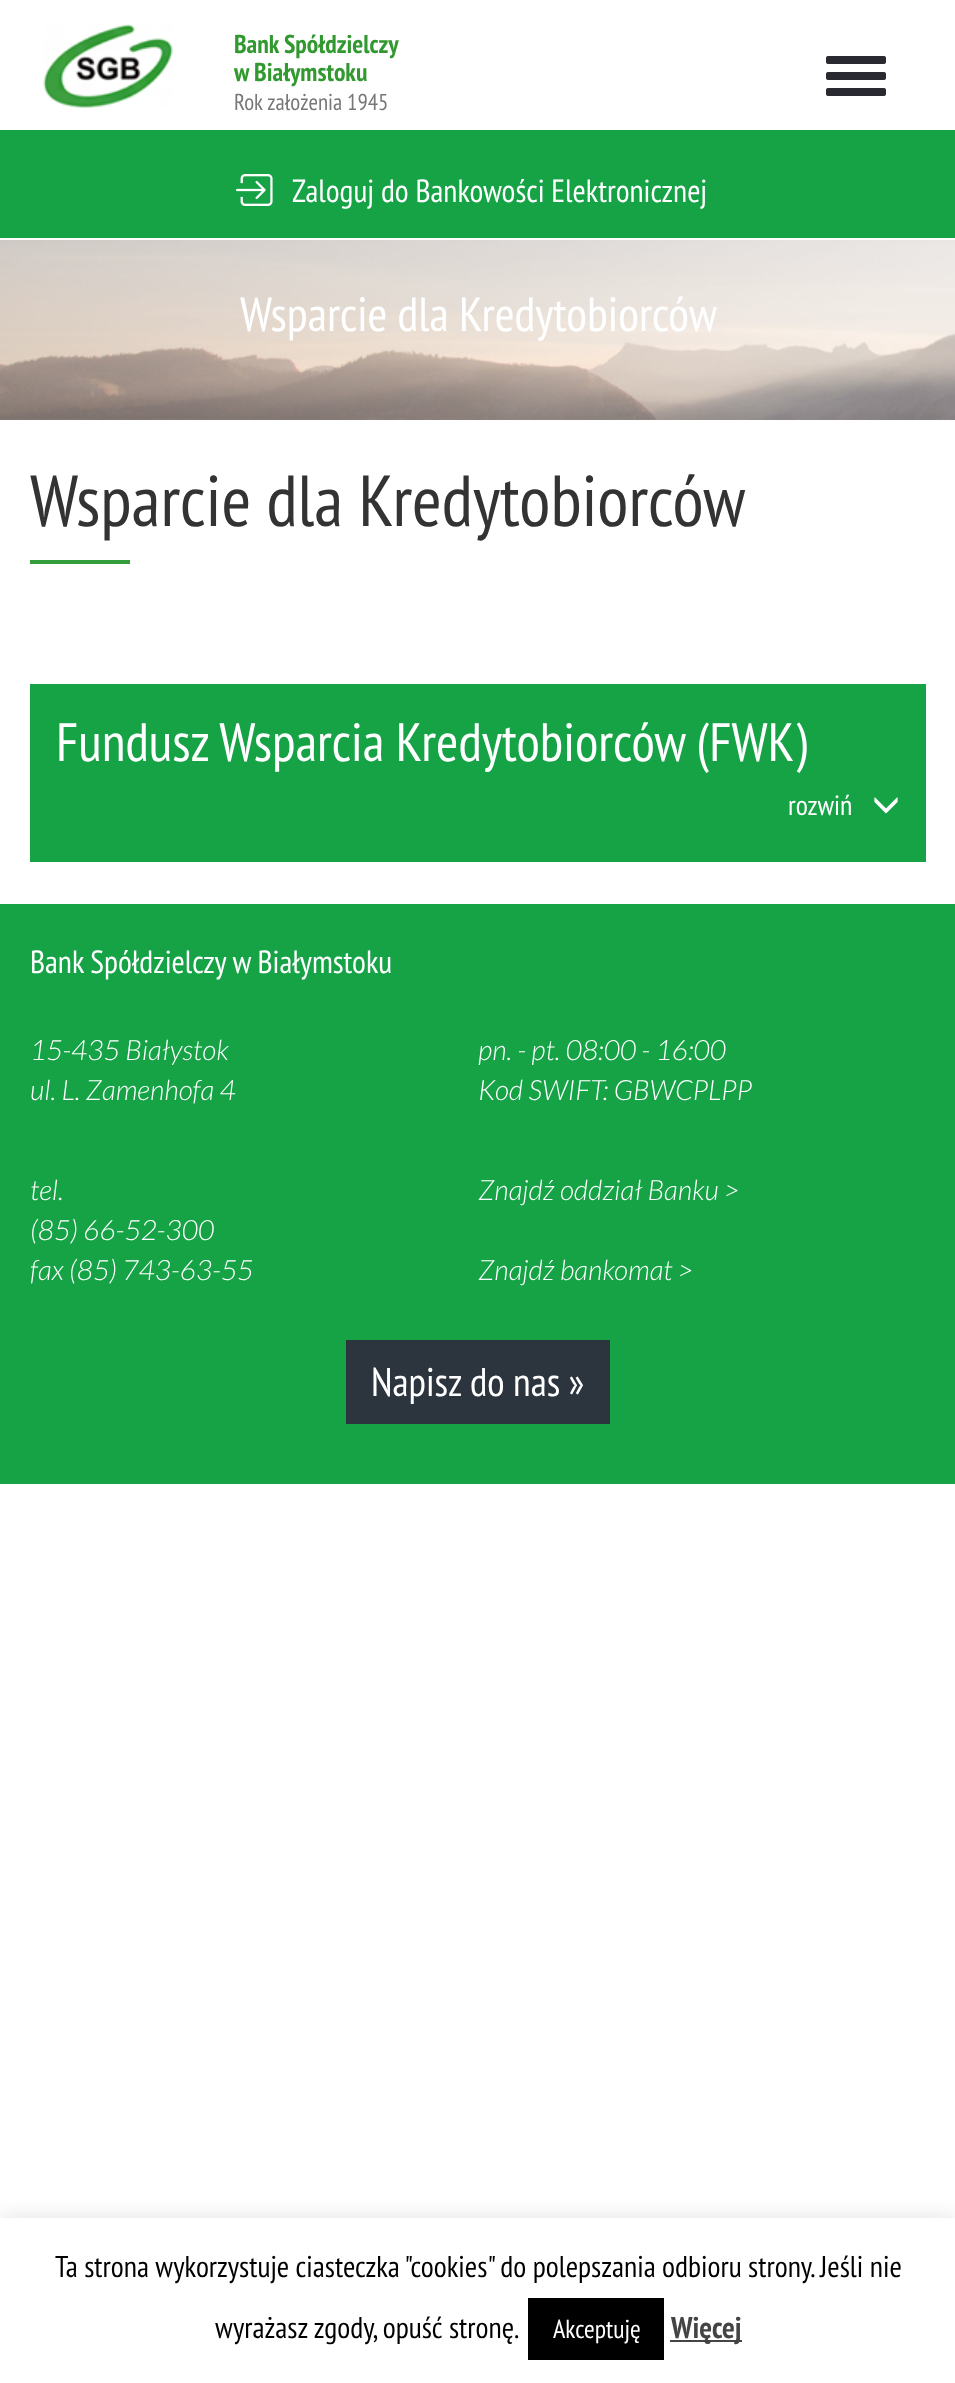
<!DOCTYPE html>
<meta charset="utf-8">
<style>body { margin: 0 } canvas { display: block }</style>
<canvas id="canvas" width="955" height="2383"></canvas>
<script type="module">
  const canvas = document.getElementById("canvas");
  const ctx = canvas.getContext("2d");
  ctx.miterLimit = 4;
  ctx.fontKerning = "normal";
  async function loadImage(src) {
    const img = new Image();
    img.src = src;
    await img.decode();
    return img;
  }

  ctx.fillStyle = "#ffffff";
  ctx.fillRect(0, 0, 955, 2383);
  ctx.drawImage(await loadImage("img1.png"), 43, 24, 130, 84);
  ctx.font = "bold 25.75px PT Sans Narrow";
  ctx.fillStyle = "#329830";
  ctx.fillText("Bank Spółdzielczy", 234, 53);
  ctx.fillText("w Białymstoku", 234, 81);
  ctx.font = "23px PT Sans Narrow";
  ctx.fillStyle = "#777777";
  ctx.fillText("Rok założenia 1945", 234, 110);
  ctx.fillStyle = "#292931";
  ctx.beginPath();
  ctx.roundRect(826, 56, 60, 8, 2);
  ctx.fill();
  ctx.beginPath();
  ctx.roundRect(826, 72, 60, 8, 2);
  ctx.fill();
  ctx.beginPath();
  ctx.roundRect(826, 88, 60, 8, 2);
  ctx.fill();
  ctx.fillStyle = "#15a346";
  ctx.fillRect(0, 130, 955, 108);
  ctx.drawImage(await loadImage("img2.png"), 236, 174, 37, 32);
  ctx.font = "32px PT Sans Narrow";
  ctx.fillStyle = "#ffffff";
  ctx.fillText("Zaloguj do Bankowości Elektronicznej", 292, 202);
  ctx.drawImage(await loadImage("img3.png"), 0, 240, 955, 180);
  ctx.font = "48px PT Sans Narrow";
  ctx.fillText("Wsparcie dla Kredytobiorców", 240, 331);
  ctx.font = "72px PT Sans Narrow";
  ctx.fillStyle = "#333333";
  ctx.fillText("Wsparcie dla Kredytobiorców", 30, 526);
  ctx.fillStyle = "#349d3b";
  ctx.fillRect(30, 560, 100, 4);
  ctx.fillStyle = "#15a346";
  ctx.fillRect(30, 684, 896, 178);
  ctx.font = "54px PT Sans Narrow";
  ctx.fillStyle = "#ffffff";
  ctx.fillText("Fundusz Wsparcia Kredytobiorców (FWK)", 56, 761);
  ctx.font = "28px PT Sans Narrow";
  ctx.fillText("rozwiń", 788, 815);
  ctx.drawImage(await loadImage("img4.png"), 874, 797, 24, 17);
  ctx.fillStyle = "#15a346";
  ctx.fillRect(0, 904, 955, 580);
  ctx.font = "32px PT Sans Narrow";
  ctx.fillStyle = "#ffffff";
  ctx.fillText("Bank Spółdzielczy w Białymstoku", 30, 973);
  ctx.font = "italic 300 28px Lato";
  ctx.fillText("15-435 Białystok", 30, 1060);
  ctx.fillText("ul. L. Zamenhofa 4", 30, 1100);
  ctx.fillText("pn. - pt. 08:00 - 16:00", 478, 1060);
  ctx.fillText("Kod SWIFT: GBWCPLPP", 478, 1100);
  ctx.fillText("tel.", 30, 1200);
  ctx.fillText("(85) 66-52-300", 30, 1240);
  ctx.fillText("fax (85) 743-63-55", 30, 1280);
  ctx.fillText("Znajdź oddział Banku >", 478, 1200);
  ctx.fillText("Znajdź bankomat >", 478, 1280);
  ctx.fillStyle = "#2c343d";
  ctx.fillRect(346, 1340, 264, 84);
  ctx.font = "40px PT Sans Narrow";
  ctx.fillStyle = "#ffffff";
  ctx.fillText("Napisz do nas »", 371, 1396);
  ctx.save();
  ctx.beginPath();
  ctx.rect(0, 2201, 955, 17);
  ctx.clip();
  ctx.fillStyle = "rgba(172, 171, 171, 0.3)";
  ctx.filter = "blur(10px)";
  ctx.beginPath();
  ctx.rect(0, 2216, 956, 166);
  ctx.fill();
  ctx.filter = "none";
  ctx.restore();
  ctx.font = "30px PT Sans Narrow";
  ctx.fillStyle = "#000000";
  ctx.fillText("Ta strona wykorzystuje ciasteczka \"cookies\" do polepszania odbioru strony. Jeśli nie", 55, 2277);
  ctx.fillText("wyrażasz zgody, opuść stronę.", 215, 2338);
  ctx.fillRect(528, 2298, 136, 62);
  ctx.font = "26px PT Sans Narrow";
  ctx.fillStyle = "#ffffff";
  ctx.fillText("Akceptuję", 553, 2338);
  ctx.fillStyle = "#444444";
  ctx.fillRect(670, 2340, 72, 2);
  ctx.font = "bold 30px PT Sans Narrow";
  ctx.fillText("Więcej", 671, 2338);
</script>
